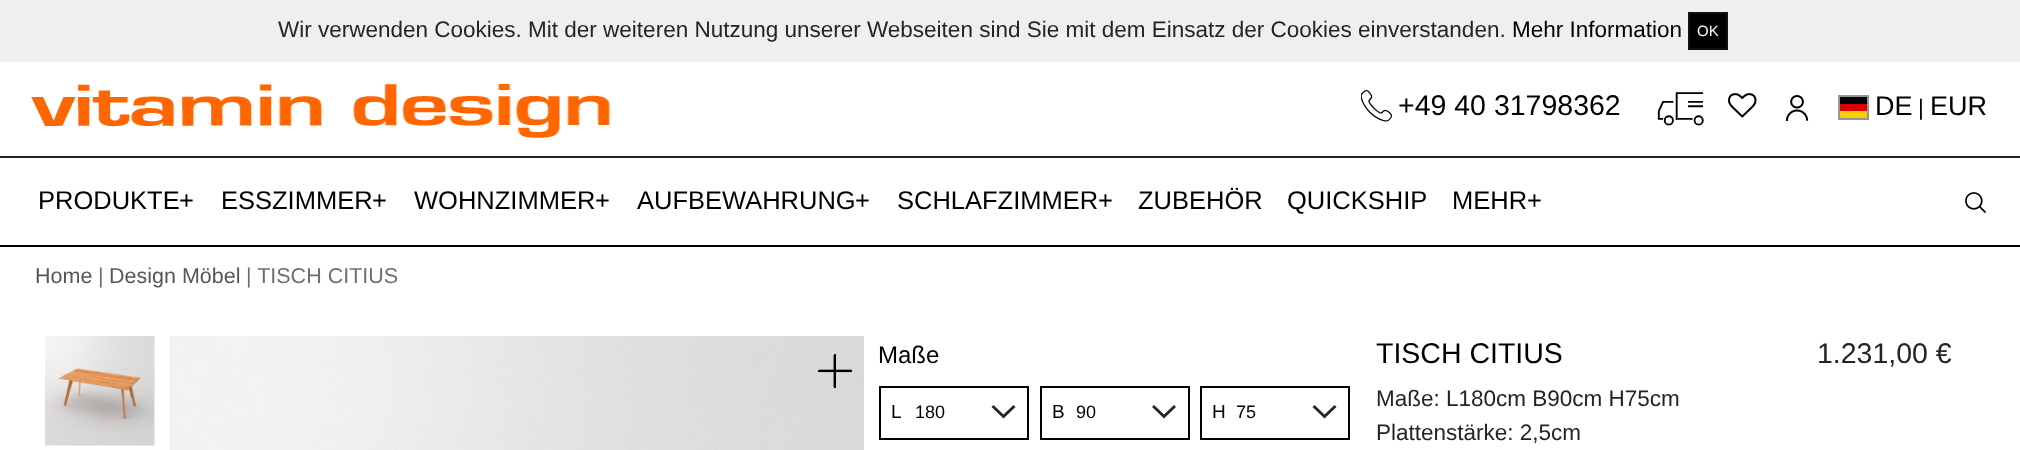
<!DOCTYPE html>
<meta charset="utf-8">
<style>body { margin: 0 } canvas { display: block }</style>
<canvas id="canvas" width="2020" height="450"></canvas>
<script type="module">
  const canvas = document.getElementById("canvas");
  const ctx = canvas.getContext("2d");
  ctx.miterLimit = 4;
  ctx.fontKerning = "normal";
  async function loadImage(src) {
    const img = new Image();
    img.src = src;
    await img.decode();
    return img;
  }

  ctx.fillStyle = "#ffffff";
  ctx.fillRect(0, 0, 2020, 450);
  ctx.fillStyle = "#efefef";
  ctx.fillRect(0, 0, 2020, 62);
  ctx.font = "22.5px Liberation Sans";
  ctx.fillStyle = "#212529";
  ctx.fillText("Wir verwenden Cookies. Mit der weiteren Nutzung unserer Webseiten sind Sie mit dem Einsatz der Cookies einverstanden.", 278, 37);
  ctx.fillStyle = "#000000";
  ctx.fillText("Mehr Information", 1512, 37);
  ctx.beginPath();
  ctx.rect(1689, 13, 38, 36);
  ctx.fill();
  ctx.strokeStyle = "#111111";
  ctx.lineWidth = 2;
  ctx.stroke();
  ctx.font = "15px Liberation Sans";
  ctx.fillStyle = "#ffffff";
  ctx.fillText("OK", 1697, 36);
  ctx.drawImage(await loadImage("img1.png"), 31, 84, 579, 54);
  ctx.drawImage(await loadImage("img2.png"), 1361, 90, 31, 32);
  ctx.font = "28.5px Liberation Sans";
  ctx.fillStyle = "#000000";
  ctx.fillText("+49 40 31798362", 1398, 115);
  ctx.drawImage(await loadImage("img3.png"), 1657, 92, 47, 34);
  ctx.drawImage(await loadImage("img4.png"), 1728, 93, 29, 25);
  ctx.drawImage(await loadImage("img5.png"), 1785, 95, 24, 26);
  ctx.fillStyle = "#ffce00";
  ctx.fillRect(1838, 111, 30, 7);
  ctx.fillStyle = "#000000";
  ctx.fillRect(1838, 97, 30, 7);
  ctx.fillStyle = "#dd0000";
  ctx.fillRect(1838, 104, 30, 7);
  ctx.strokeStyle = "#969696";
  ctx.strokeRect(1839, 96, 29, 23);
  ctx.font = "27px Liberation Sans";
  ctx.fillStyle = "#000000";
  ctx.fillText("DE", 1875, 115);
  ctx.font = "22.5px Liberation Sans";
  ctx.fillText("|", 1918, 115);
  ctx.font = "27px Liberation Sans";
  ctx.fillText("EUR", 1930, 115);
  ctx.fillStyle = "#212529";
  ctx.fillRect(0, 156, 2020, 2);
  ctx.fillStyle = "#000000";
  ctx.fillRect(0, 245, 2020, 2);
  ctx.font = "25.5px Liberation Sans";
  ctx.fillText("PRODUKTE", 38, 209);
  ctx.fillText("+", 179, 209);
  ctx.fillText("ESSZIMMER", 221, 209);
  ctx.fillText("+", 372, 209);
  ctx.fillText("WOHNZIMMER", 414, 209);
  ctx.fillText("+", 595, 209);
  ctx.fillText("AUFBEWAHRUNG", 637, 209);
  ctx.fillText("+", 855, 209);
  ctx.fillText("SCHLAFZIMMER", 897, 209);
  ctx.fillText("+", 1098, 209);
  ctx.fillText("ZUBEHÖR", 1138, 209);
  ctx.fillText("QUICKSHIP", 1287, 209);
  ctx.fillText("MEHR", 1452, 209);
  ctx.fillText("+", 1527, 209);
  ctx.drawImage(await loadImage("img6.png"), 1965, 192, 21, 21);
  ctx.font = "21.5px Liberation Sans";
  ctx.fillStyle = "#565656";
  ctx.fillText("Home", 35, 283);
  ctx.fillStyle = "#6f6f6f";
  ctx.fillText("|", 98, 283);
  ctx.fillStyle = "#565656";
  ctx.fillText("Design Möbel", 109, 283);
  ctx.fillStyle = "#6f6f6f";
  ctx.fillText("| TISCH CITIUS", 246, 283);
  ctx.drawImage(await loadImage("img7.png"), 45, 336, 110, 110);
  ctx.drawImage(await loadImage("img8.png"), 169, 336, 695, 114);
  ctx.drawImage(await loadImage("img9.png"), 817, 353, 36, 36);
  ctx.font = "24px Liberation Sans";
  ctx.fillStyle = "#000000";
  ctx.fillText("Maße", 878, 363);
  ctx.fillStyle = "#262626";
  ctx.beginPath();
  ctx.moveTo(1003.5, 418.5);
  ctx.lineTo(1015.5, 407);
  ctx.lineTo(1013.5, 405);
  ctx.lineTo(1003.5, 414.5);
  ctx.lineTo(993.5, 405);
  ctx.lineTo(991.5, 407);
  ctx.lineTo(1001.5, 416.5);
  ctx.closePath();
  ctx.fill("evenodd");
  ctx.strokeStyle = "#000000";
  ctx.strokeRect(880, 387, 148, 52);
  ctx.font = "19px Liberation Sans";
  ctx.fillStyle = "#000000";
  ctx.fillText("L", 891, 418);
  ctx.font = "18px Liberation Sans";
  ctx.fillText("180", 915, 418);
  ctx.fillStyle = "#262626";
  ctx.beginPath();
  ctx.moveTo(1164, 418.5);
  ctx.lineTo(1176, 407);
  ctx.lineTo(1174, 405);
  ctx.lineTo(1164, 414.5);
  ctx.lineTo(1154, 405);
  ctx.lineTo(1152, 407);
  ctx.lineTo(1162, 416.5);
  ctx.closePath();
  ctx.fill("evenodd");
  ctx.strokeRect(1041, 387, 148, 52);
  ctx.font = "19px Liberation Sans";
  ctx.fillStyle = "#000000";
  ctx.fillText("B", 1052, 418);
  ctx.font = "18px Liberation Sans";
  ctx.fillText("90", 1076, 418);
  ctx.fillStyle = "#262626";
  ctx.beginPath();
  ctx.moveTo(1324.5, 418.5);
  ctx.lineTo(1336.5, 407);
  ctx.lineTo(1334.5, 405);
  ctx.lineTo(1324.5, 414.5);
  ctx.lineTo(1314.5, 405);
  ctx.lineTo(1312.5, 407);
  ctx.lineTo(1322.5, 416.5);
  ctx.closePath();
  ctx.fill("evenodd");
  ctx.strokeRect(1201, 387, 148, 52);
  ctx.font = "19px Liberation Sans";
  ctx.fillStyle = "#000000";
  ctx.fillText("H", 1212, 418);
  ctx.font = "18px Liberation Sans";
  ctx.fillText("75", 1236, 418);
  ctx.font = "28.5px Liberation Sans";
  ctx.fillText("TISCH CITIUS", 1376, 363);
  ctx.fillStyle = "#212529";
  ctx.fillText("1.231,00 €", 1817, 363);
  ctx.font = "22.5px Liberation Sans";
  ctx.fillText("Maße: L180cm B90cm H75cm", 1376, 406);
  ctx.fillText("Plattenstärke: 2,5cm", 1376, 440);
</script>
